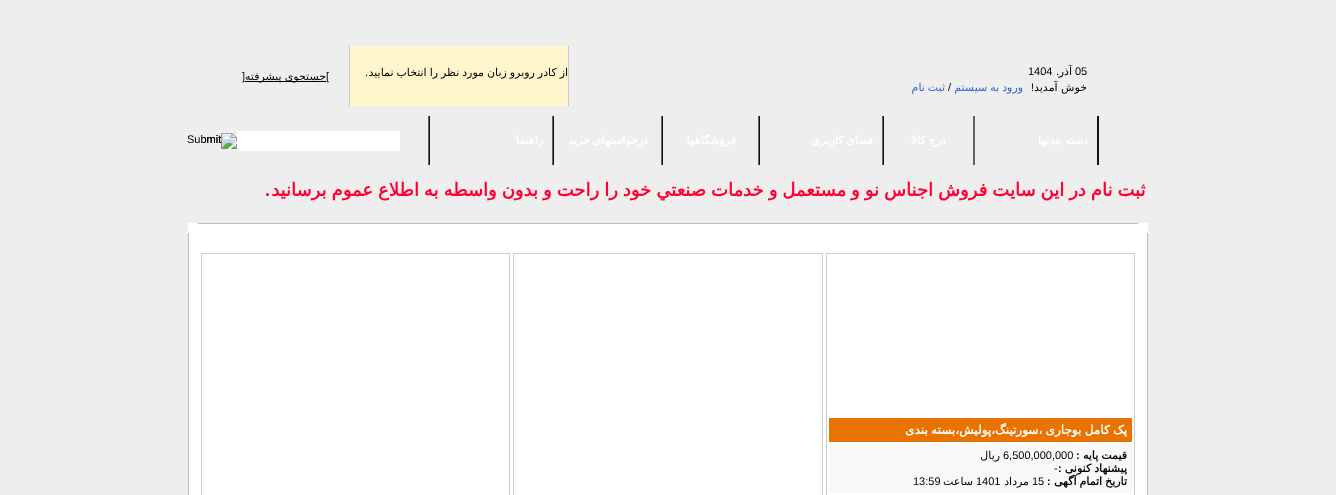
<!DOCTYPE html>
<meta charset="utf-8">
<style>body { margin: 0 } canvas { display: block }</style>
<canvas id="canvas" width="1336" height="495"></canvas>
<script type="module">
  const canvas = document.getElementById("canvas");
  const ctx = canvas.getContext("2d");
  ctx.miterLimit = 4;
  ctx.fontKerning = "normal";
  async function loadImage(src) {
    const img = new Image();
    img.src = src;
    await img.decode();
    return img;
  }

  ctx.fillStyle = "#eeeeee";
  ctx.fillRect(0, 0, 1336, 495);
  ctx.fillStyle = "#cccccc";
  ctx.fillRect(568, 46, 1, 60);
  ctx.font = "11px Liberation Sans";
  ctx.fillStyle = "#000000";
  ctx.fillText("05", 1075, 75);
  ctx.direction = "rtl";
  ctx.font = "11px DejaVu Sans";
  ctx.fillText("آذر", 1072, 75);
  ctx.font = "11px Liberation Sans";
  ctx.fillText(".", 1059, 75);
  ctx.direction = "ltr";
  ctx.fillText("1404", 1028, 75);
  ctx.direction = "rtl";
  ctx.font = "11px DejaVu Sans";
  ctx.fillText("خوش آمدید", 1087, 91);
  ctx.font = "11px Liberation Sans";
  ctx.fillText("!", 1034, 91);
  ctx.wordSpacing = "-0.5px";
  ctx.font = "11px DejaVu Sans";
  ctx.fillStyle = "#3366cc";
  ctx.fillText("ورود به سیستم", 1023, 91);
  ctx.wordSpacing = "0px";
  ctx.direction = "ltr";
  ctx.font = "11px Liberation Sans";
  ctx.fillStyle = "#000000";
  ctx.fillText("/", 948, 91);
  ctx.wordSpacing = "-0.5px";
  ctx.direction = "rtl";
  ctx.font = "11px DejaVu Sans";
  ctx.fillStyle = "#3366cc";
  ctx.fillText("ثبت نام", 945, 91);
  ctx.fillStyle = "#fff5cc";
  ctx.fillRect(350, 46, 218, 60);
  ctx.fillStyle = "#cccccc";
  ctx.fillRect(349, 46, 1, 60);
  ctx.fillStyle = "#000000";
  ctx.fillText("از كادر روبرو زبان مورد نظر را انتخاب نماييد", 568, 76);
  ctx.wordSpacing = "0px";
  ctx.font = "11px Liberation Sans";
  ctx.fillText(".", 368, 76);
  ctx.direction = "ltr";
  ctx.fillText("[", 326, 80);
  ctx.fillRect(245, 81, 81, 1);
  ctx.wordSpacing = "-0.5px";
  ctx.direction = "rtl";
  ctx.font = "11px DejaVu Sans";
  ctx.fillText("جستجوی پیشرفته", 326, 80);
  ctx.wordSpacing = "0px";
  ctx.direction = "ltr";
  ctx.font = "11px Liberation Sans";
  ctx.fillText("]", 242, 80);
  ctx.fillStyle = "#111212";
  ctx.fillRect(1097, 116, 2, 49);
  ctx.fillStyle = "#606468";
  ctx.fillRect(973, 116, 2, 49);
  ctx.wordSpacing = "-0.5px";
  ctx.direction = "rtl";
  ctx.font = "bold 11px DejaVu Sans";
  ctx.fillStyle = "#ffffff";
  ctx.fillText("دسته بندیها", 1088, 144);
  ctx.fillStyle = "#111212";
  ctx.fillRect(883, 116, 1, 49);
  ctx.fillStyle = "#ffffff";
  ctx.fillText("درج کالا", 946, 144);
  ctx.fillStyle = "#606468";
  ctx.fillRect(882, 116, 1, 49);
  ctx.fillStyle = "#111212";
  ctx.fillRect(759, 116, 1, 49);
  ctx.fillStyle = "#ffffff";
  ctx.fillText("فضای كاربری", 873, 144);
  ctx.fillStyle = "#606468";
  ctx.fillRect(758, 116, 1, 49);
  ctx.fillStyle = "#111212";
  ctx.fillRect(662, 116, 1, 49);
  ctx.wordSpacing = "0px";
  ctx.fillStyle = "#ffffff";
  ctx.fillText("فروشگاهها", 736, 144);
  ctx.fillStyle = "#606468";
  ctx.fillRect(661, 116, 1, 49);
  ctx.fillStyle = "#111212";
  ctx.fillRect(553, 116, 1, 49);
  ctx.wordSpacing = "-0.5px";
  ctx.fillStyle = "#ffffff";
  ctx.fillText("درخواستهای خرید", 648, 144);
  ctx.fillStyle = "#606468";
  ctx.fillRect(552, 116, 1, 49);
  ctx.fillStyle = "#111212";
  ctx.fillRect(429, 116, 1, 49);
  ctx.wordSpacing = "0px";
  ctx.fillStyle = "#ffffff";
  ctx.fillText("راهنما", 543, 144);
  ctx.fillStyle = "#606468";
  ctx.fillRect(428, 116, 1, 49);
  ctx.fillStyle = "#ffffff";
  ctx.fillRect(237, 131, 163, 20);
  ctx.drawImage(await loadImage("img1.png"), 203, 133, 34, 16);
  ctx.direction = "ltr";
  ctx.font = "11px Liberation Sans";
  ctx.fillStyle = "#000000";
  ctx.fillText("Submit", 187, 143);
  ctx.save();
  ctx.beginPath();
  ctx.rect(188, 165, 960, 48);
  ctx.clip();
  ctx.wordSpacing = "-0.75px";
  ctx.direction = "rtl";
  ctx.font = "bold 18px DejaVu Sans";
  ctx.fillStyle = "#ff0032";
  ctx.fillText("با ثبت نام در اين سايت فروش اجناس نو و مستعمل و خدمات صنعتي خود را راحت و بدون واسطه به اطلاع عموم برسانيد", 1161, 196);
  ctx.restore();
  ctx.direction = "rtl";
  ctx.font = "bold 18px Liberation Sans";
  ctx.fillStyle = "#ff0032";
  ctx.fillText(".", 270, 196);
  ctx.fillStyle = "#ffffff";
  ctx.fillRect(188, 223, 960, 272);
  ctx.fillStyle = "#bbbbbb";
  ctx.fillRect(198, 223, 940, 1);
  ctx.fillRect(1147, 233, 1, 262);
  ctx.strokeStyle = "#cccccc";
  ctx.strokeRect(826.5, 253.5, 308, 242);
  ctx.fillStyle = "#e97300";
  ctx.fillRect(829, 418, 303, 24);
  ctx.wordSpacing = "-0.5px";
  ctx.font = "bold 12px DejaVu Sans";
  ctx.fillStyle = "#ffffff";
  ctx.fillText("پک کامل بوجاری ،سورتینگ،پولیش،بسته بندی", 1127, 434);
  ctx.fillStyle = "#f8f8f8";
  ctx.fillRect(829, 444, 303, 49);
  ctx.font = "bold 11px DejaVu Sans";
  ctx.fillStyle = "#000000";
  ctx.fillText("قیمت پایه", 1127, 459);
  ctx.wordSpacing = "0px";
  ctx.direction = "ltr";
  ctx.font = "bold 11px Liberation Sans";
  ctx.fillText(":", 1076, 459);
  ctx.font = "11px Liberation Sans";
  ctx.fillText("6,500,000,000", 1003, 459);
  ctx.direction = "rtl";
  ctx.font = "11px DejaVu Sans";
  ctx.fillText("ریال", 1000, 459);
  ctx.wordSpacing = "-0.5px";
  ctx.font = "bold 11px DejaVu Sans";
  ctx.fillText("پیشنهاد كنونی", 1127, 472);
  ctx.wordSpacing = "0px";
  ctx.direction = "ltr";
  ctx.font = "bold 11px Liberation Sans";
  ctx.fillText(":", 1058, 472);
  ctx.font = "11px Liberation Sans";
  ctx.fillText("-", 1054, 472);
  ctx.wordSpacing = "-0.5px";
  ctx.direction = "rtl";
  ctx.font = "bold 11px DejaVu Sans";
  ctx.fillText("تاریخ اتمام آگهی", 1127, 485);
  ctx.wordSpacing = "0px";
  ctx.direction = "ltr";
  ctx.font = "bold 11px Liberation Sans";
  ctx.fillText(":", 1047, 485);
  ctx.font = "11px Liberation Sans";
  ctx.fillText("15", 1032, 485);
  ctx.direction = "rtl";
  ctx.font = "11px DejaVu Sans";
  ctx.fillText("مرداد", 1029, 485);
  ctx.direction = "ltr";
  ctx.font = "11px Liberation Sans";
  ctx.fillText("1401", 976, 485);
  ctx.direction = "rtl";
  ctx.font = "11px DejaVu Sans";
  ctx.fillText("ساعت", 973, 485);
  ctx.direction = "ltr";
  ctx.font = "11px Liberation Sans";
  ctx.fillText("13:59", 913, 485);
  ctx.strokeRect(513.5, 253.5, 309, 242);
  ctx.strokeRect(201.5, 253.5, 308, 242);
  ctx.fillStyle = "#bbbbbb";
  ctx.fillRect(188, 233, 1, 262);
</script>
